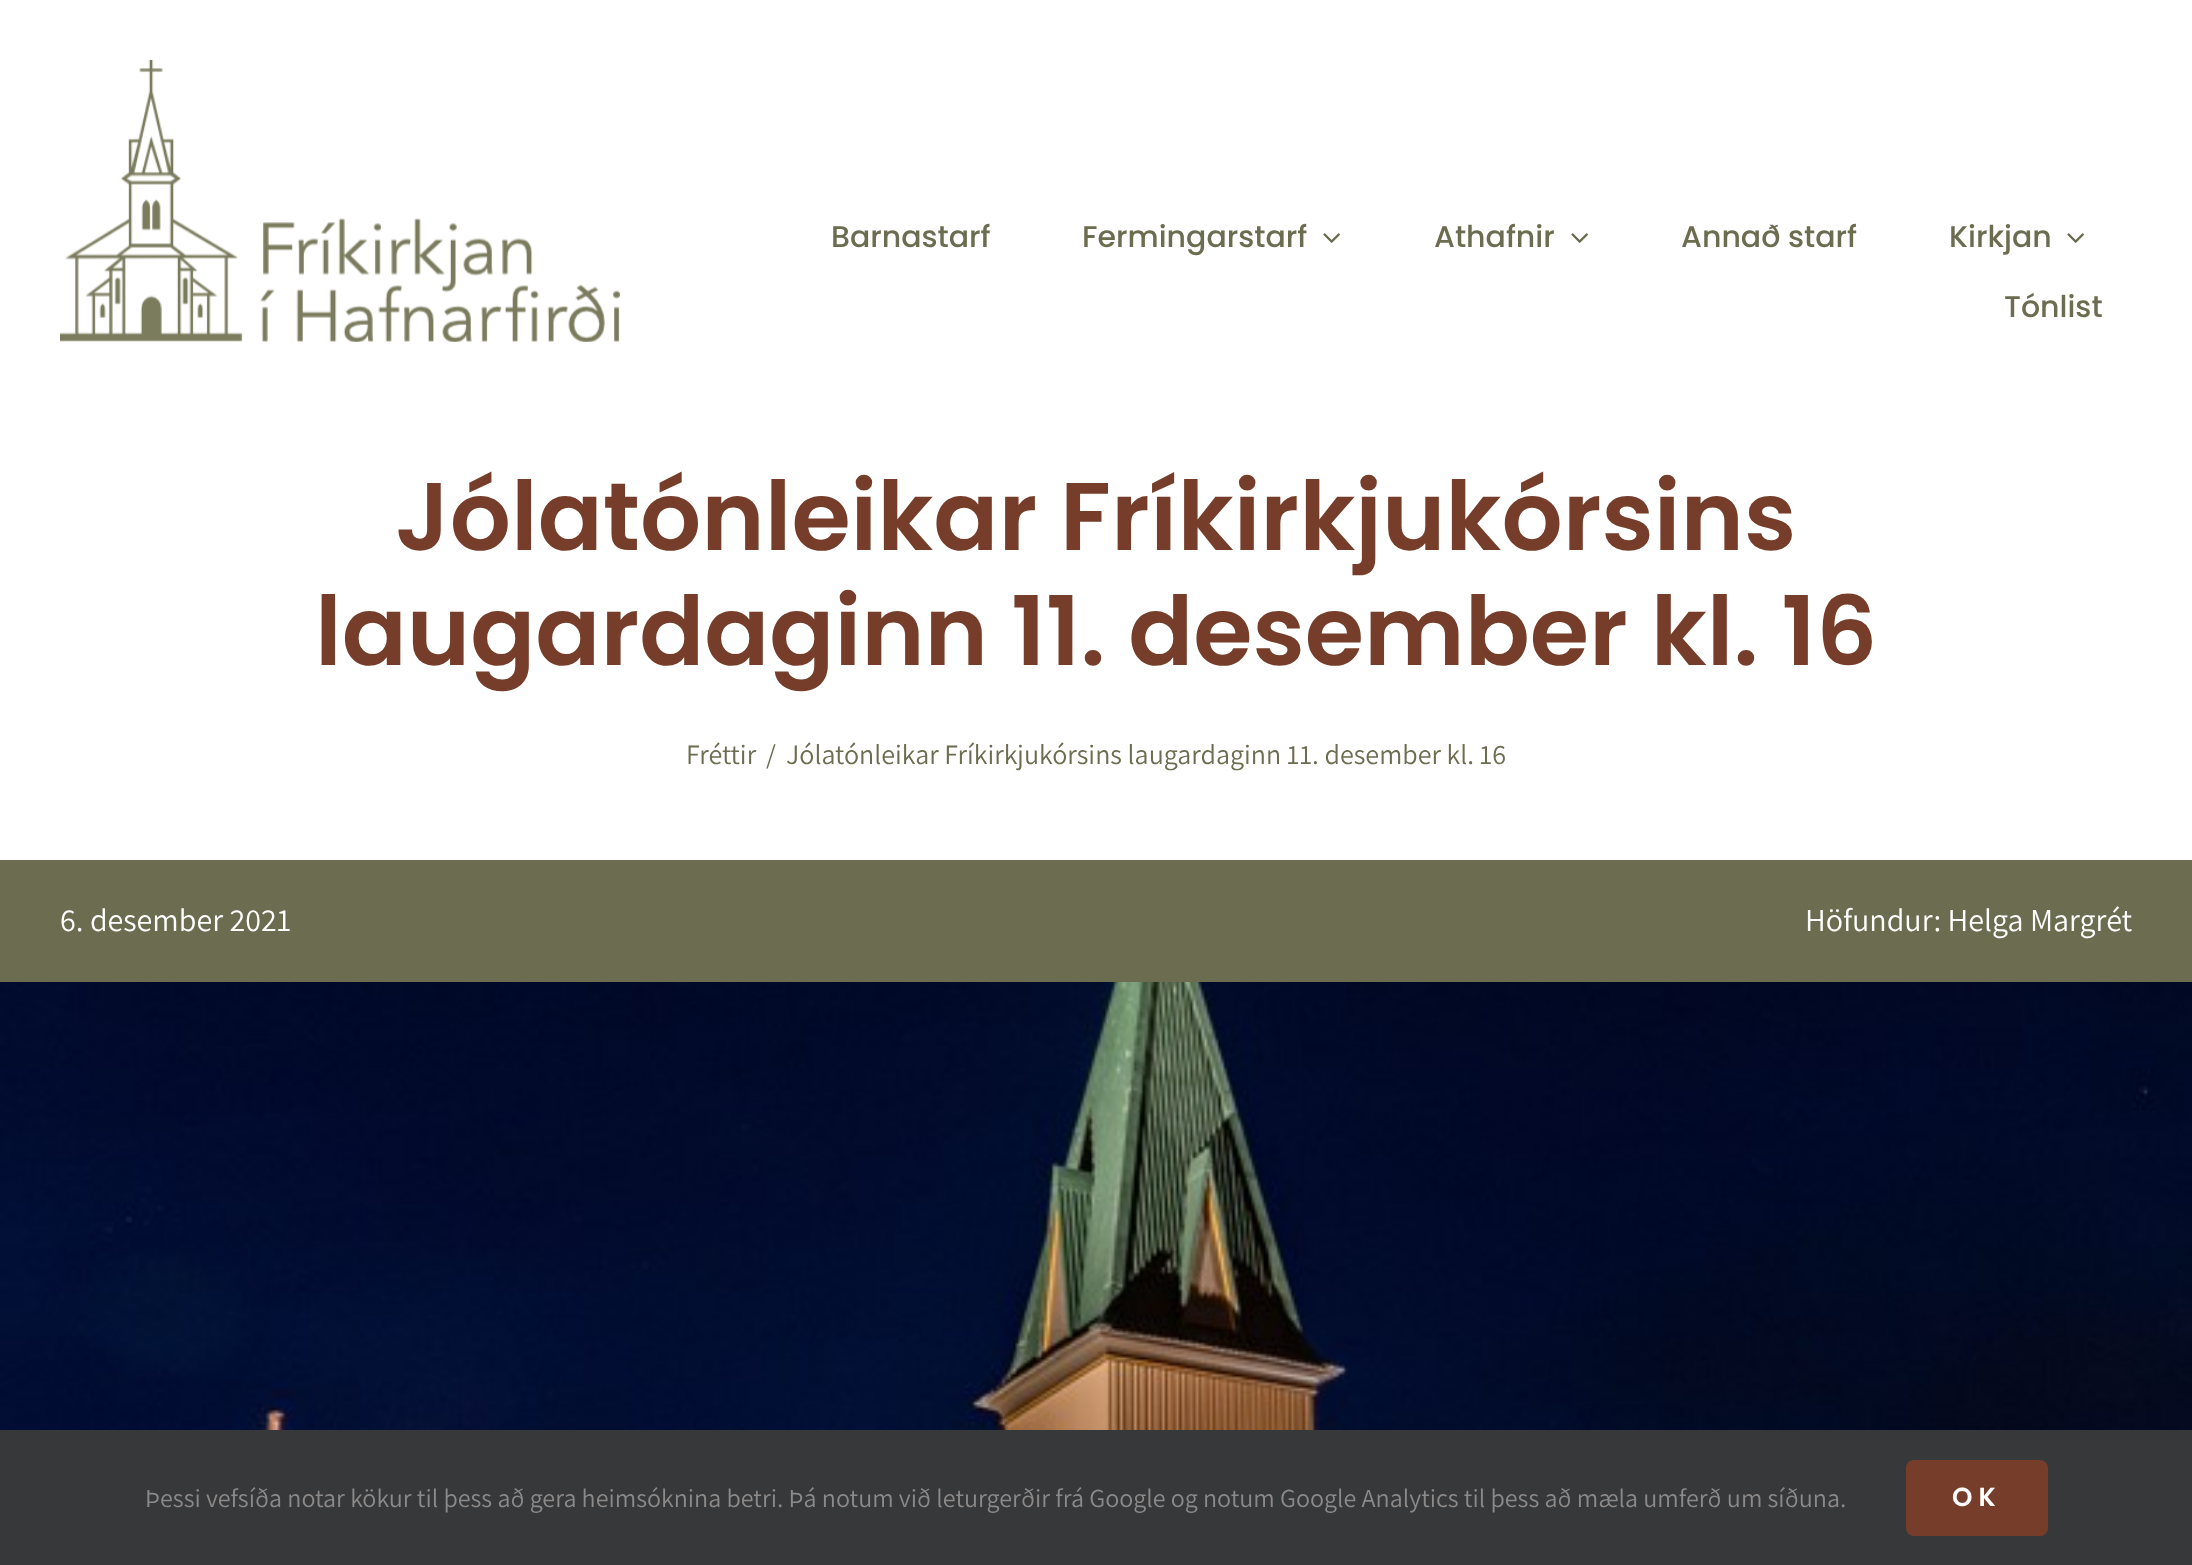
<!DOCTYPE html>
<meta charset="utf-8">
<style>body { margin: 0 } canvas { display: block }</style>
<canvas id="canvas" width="2192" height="1565"></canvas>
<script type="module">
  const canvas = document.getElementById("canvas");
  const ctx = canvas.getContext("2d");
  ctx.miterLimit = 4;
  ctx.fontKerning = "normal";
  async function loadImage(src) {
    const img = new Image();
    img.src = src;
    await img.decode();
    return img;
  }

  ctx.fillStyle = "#ffffff";
  ctx.fillRect(0, 0, 2192, 1565);
  ctx.drawImage(await loadImage("img1.png"), 60, 60, 560, 282);
  ctx.font = "500 30px Poppins";
  ctx.fillStyle = "#6c6c50";
  ctx.fillText("Barnastarf", 831, 247);
  ctx.fillText("Fermingarstarf", 1082, 247);
  ctx.drawImage(await loadImage("img2.png"), 1323, 233, 17, 10);
  ctx.fillText("Athafnir", 1434, 247);
  ctx.drawImage(await loadImage("img2.png"), 1571, 233, 17, 10);
  ctx.fillText("Annað starf", 1681, 247);
  ctx.fillText("Kirkjan", 1949, 247);
  ctx.drawImage(await loadImage("img2.png"), 2067, 233, 17, 10);
  ctx.fillText("Tónlist", 2004, 317);
  ctx.font = "600 96px Poppins";
  ctx.fillStyle = "#763e2a";
  ctx.fillText("Jólatónleikar Fríkirkjukórsins", 395, 550);
  ctx.fillText("laugardaginn 11. desember kl. 16", 315, 665);
  ctx.font = "28px Assistant";
  ctx.fillStyle = "#6c6c50";
  ctx.fillText("Fréttir", 686, 764);
  ctx.fillText("/", 766, 764);
  ctx.fillText("Jólatónleikar Fríkirkjukórsins laugardaginn 11. desember kl. 16", 786, 764);
  ctx.fillRect(0, 860, 2192, 122);
  ctx.font = "32px Assistant";
  ctx.fillStyle = "#ffffff";
  ctx.fillText("6. desember 2021", 60, 931);
  ctx.fillText("Höfundur: Helga Margrét", 1805, 931);
  ctx.drawImage(await loadImage("img3.png"), 0, 982, 2192, 448);
  ctx.fillStyle = "#363839";
  ctx.fillRect(0, 1430, 2192, 135);
  ctx.font = "26px Assistant";
  ctx.fillStyle = "#8c8989";
  ctx.fillText("Þessi vefsíða notar kökur til þess að gera heimsóknina betri. Þá notum við leturgerðir frá Google og notum Google Analytics til þess að mæla umferð um síðuna.", 145, 1507);
  ctx.fillStyle = "#763e2a";
  ctx.beginPath();
  ctx.roundRect(1906, 1460, 142, 76, 8);
  ctx.fill();
  ctx.letterSpacing = "6px";
  ctx.font = "600 26px Poppins";
  ctx.fillStyle = "#ffffff";
  ctx.fillText("OK", 1952, 1506);
</script>
